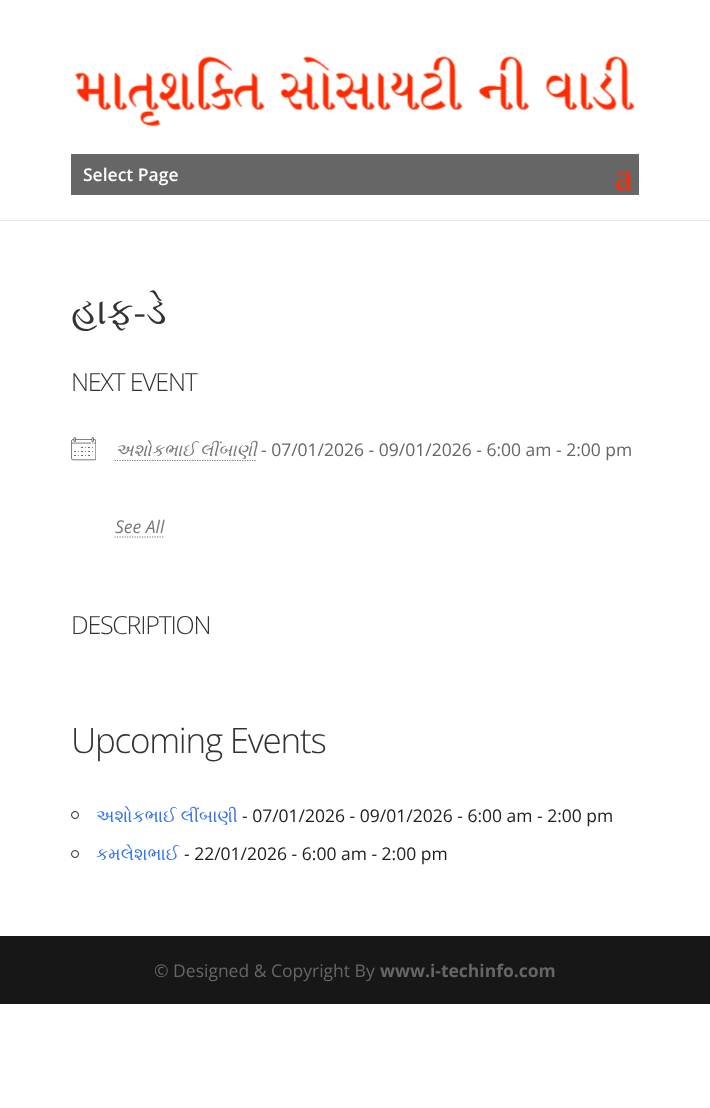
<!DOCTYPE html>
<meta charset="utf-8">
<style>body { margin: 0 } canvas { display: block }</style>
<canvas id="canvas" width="710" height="1108"></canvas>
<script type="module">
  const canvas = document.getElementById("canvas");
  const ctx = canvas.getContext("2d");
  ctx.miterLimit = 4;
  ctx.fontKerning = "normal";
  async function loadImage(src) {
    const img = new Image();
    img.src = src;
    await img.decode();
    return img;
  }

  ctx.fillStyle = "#ffffff";
  ctx.fillRect(0, 0, 710, 1108);
  ctx.fillStyle = "#e6e6e6";
  ctx.fillRect(0, 220, 710, 1);
  ctx.drawImage(await loadImage("img1.png"), 74, 55, 561, 72);
  ctx.fillStyle = "#6b6b6b";
  ctx.fillRect(71, 154, 568, 41);
  ctx.fillStyle = "#666666";
  ctx.beginPath();
  ctx.roundRect(71, 154, 568, 41, 6);
  ctx.fill();
  ctx.font = "600 17.5px Open Sans";
  ctx.fillStyle = "#ffffff";
  ctx.fillText("Select Page", 83, 181);
  ctx.font = "40px Liberation Serif";
  ctx.fillStyle = "#ff2a00";
  ctx.fillText("a", 615, 190);
  ctx.font = "37.5px FreeSerif";
  ctx.fillStyle = "#333333";
  ctx.fillText("હાફ-ડે", 71, 324);
  ctx.letterSpacing = "-1.25px";
  ctx.font = "300 25px Open Sans";
  ctx.fillText("NEXT EVENT", 71, 391);
  ctx.drawImage(await loadImage("img2.png"), 71, 437, 25, 24);
  ctx.letterSpacing = "0px";
  ctx.font = "italic 17.5px FreeSerif";
  ctx.fillStyle = "#787878";
  ctx.fillText("અશોકભાઈ લીંબાણી", 115, 456);
  ctx.beginPath();
  ctx.moveTo(114.5, 460.5);
  ctx.lineTo(256.5, 460.5);
  ctx.strokeStyle = "#787878";
  ctx.lineWidth = 1.2;
  ctx.setLineDash([1.25, 1.25]);
  ctx.stroke();
  ctx.font = "17.5px Open Sans";
  ctx.fillStyle = "#666666";
  ctx.fillText("- 07/01/2026 - 09/01/2026 - 6:00 am - 2:00 pm", 261, 456);
  ctx.font = "italic 17.5px Open Sans";
  ctx.fillStyle = "#787878";
  ctx.fillText("See All", 115, 533);
  ctx.beginPath();
  ctx.moveTo(114.5, 537);
  ctx.lineTo(164, 537);
  ctx.stroke();
  ctx.letterSpacing = "-1.25px";
  ctx.font = "300 25px Open Sans";
  ctx.fillStyle = "#333333";
  ctx.fillText("DESCRIPTION", 71, 634);
  ctx.font = "300 35px Open Sans";
  ctx.fillText("Upcoming Events", 71, 753);
  ctx.beginPath();
  ctx.arc(75, 815, 3.5, 0, Math.PI * 2);
  ctx.strokeStyle = "#212121";
  ctx.lineWidth = 1;
  ctx.setLineDash([]);
  ctx.stroke();
  ctx.letterSpacing = "0px";
  ctx.font = "17.5px FreeSerif";
  ctx.fillStyle = "#3372f0";
  ctx.fillText("અશોકભાઈ લીંબાણી", 96, 822);
  ctx.font = "17.5px Open Sans";
  ctx.fillStyle = "#212121";
  ctx.fillText("- 07/01/2026 - 09/01/2026 - 6:00 am - 2:00 pm", 242, 822);
  ctx.beginPath();
  ctx.arc(75, 854, 3.5, 0, Math.PI * 2);
  ctx.stroke();
  ctx.font = "17.5px FreeSerif";
  ctx.fillStyle = "#3372f0";
  ctx.fillText("કમલેશભાઈ", 96, 860);
  ctx.font = "17.5px Open Sans";
  ctx.fillStyle = "#212121";
  ctx.fillText("- 22/01/2026 - 6:00 am - 2:00 pm", 184, 860);
  ctx.fillStyle = "#171717";
  ctx.fillRect(0, 936, 710, 68);
  ctx.fillStyle = "#666666";
  ctx.fillText("© Designed & Copyright By", 154, 977);
  ctx.font = "bold 17.5px Open Sans";
  ctx.fillText("www.i-techinfo.com", 380, 977);
</script>
